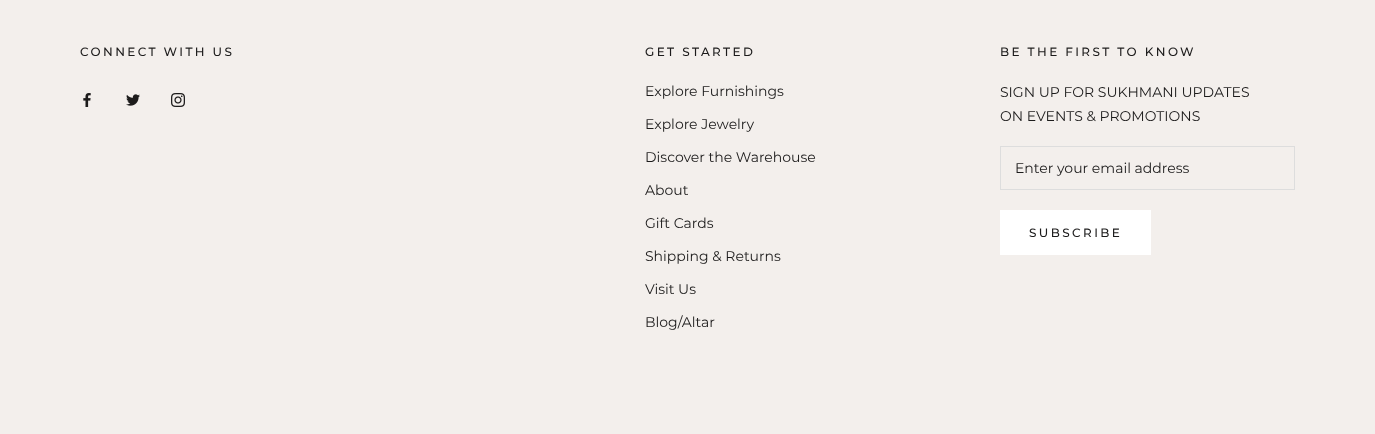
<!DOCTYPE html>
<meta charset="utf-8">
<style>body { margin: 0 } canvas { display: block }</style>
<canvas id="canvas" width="1375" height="434"></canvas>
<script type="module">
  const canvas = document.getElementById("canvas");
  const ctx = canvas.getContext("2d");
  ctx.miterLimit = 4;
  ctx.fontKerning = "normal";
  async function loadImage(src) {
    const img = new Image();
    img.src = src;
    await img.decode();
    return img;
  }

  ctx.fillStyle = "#f3efec";
  ctx.fillRect(0, 0, 1375, 434);
  ctx.letterSpacing = "2.4px";
  ctx.font = "500 12px Montserrat";
  ctx.fillStyle = "#1c1b1b";
  ctx.fillText("CONNECT WITH US", 80, 56);
  ctx.drawImage(await loadImage("img1.png"), 83, 93, 8, 14);
  ctx.drawImage(await loadImage("img2.png"), 126, 94, 14, 12);
  ctx.drawImage(await loadImage("img3.png"), 171, 93, 14, 14);
  ctx.fillText("GET STARTED", 645, 56);
  ctx.letterSpacing = "0px";
  ctx.font = "14px Montserrat";
  ctx.fillText("Explore Furnishings", 645, 96);
  ctx.fillText("Explore Jewelry", 645, 129);
  ctx.fillText("Discover the Warehouse", 645, 162);
  ctx.fillText("About", 645, 195);
  ctx.fillText("Gift Cards", 645, 228);
  ctx.fillText("Shipping & Returns", 645, 261);
  ctx.fillText("Visit Us", 645, 294);
  ctx.fillText("Blog/Altar", 645, 327);
  ctx.letterSpacing = "2.4px";
  ctx.font = "500 12px Montserrat";
  ctx.fillText("BE THE FIRST TO KNOW", 1000, 56);
  ctx.letterSpacing = "0px";
  ctx.font = "14px Montserrat";
  ctx.fillText("SIGN UP FOR SUKHMANI UPDATES", 1000, 97);
  ctx.fillText("ON EVENTS & PROMOTIONS", 1000, 121);
  ctx.strokeStyle = "#dddddd";
  ctx.strokeRect(1000.5, 146.5, 294, 43);
  ctx.fillText("Enter your email address", 1015, 173);
  ctx.strokeStyle = "#ffffff";
  ctx.strokeRect(1000.5, 210.5, 150, 44);
  ctx.fillStyle = "#ffffff";
  ctx.fillRect(1001, 211, 149, 43);
  ctx.letterSpacing = "2.4px";
  ctx.font = "500 12px Montserrat";
  ctx.fillStyle = "#1c1b1b";
  ctx.fillText("SUBSCRIBE", 1029, 237);
</script>
